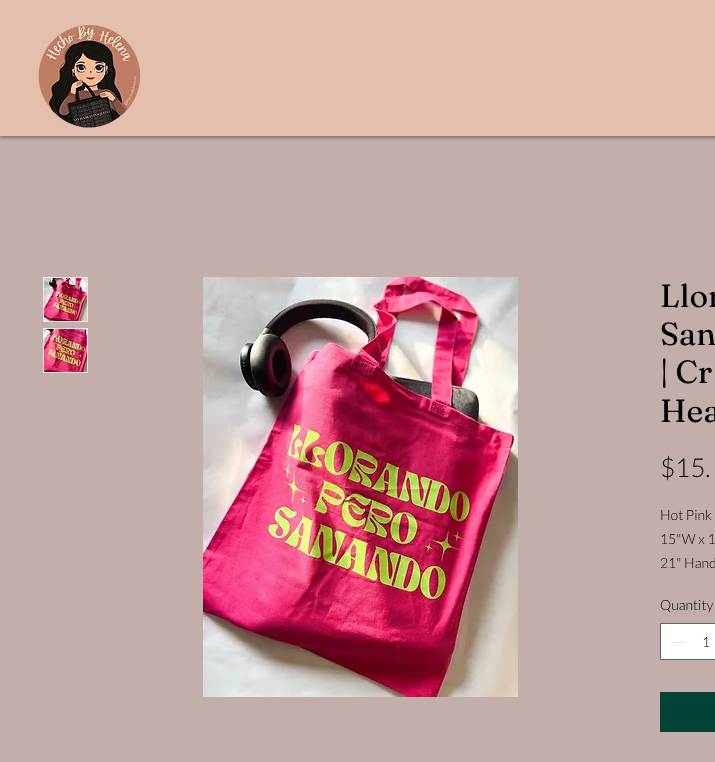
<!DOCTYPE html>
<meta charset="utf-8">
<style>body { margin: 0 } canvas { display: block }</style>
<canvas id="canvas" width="715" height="762"></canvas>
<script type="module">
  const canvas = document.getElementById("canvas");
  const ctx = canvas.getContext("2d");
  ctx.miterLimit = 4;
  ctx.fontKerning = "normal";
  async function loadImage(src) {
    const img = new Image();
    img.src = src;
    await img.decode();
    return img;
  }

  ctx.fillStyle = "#c4aeac";
  ctx.fillRect(0, 0, 715, 762);
  ctx.fillStyle = "rgba(0, 0, 0, 0.7)";
  ctx.filter = "blur(2.5px)";
  ctx.beginPath();
  ctx.rect(0, 0, 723, 136);
  ctx.fill();
  ctx.filter = "none";
  ctx.fillStyle = "#e4bfad";
  ctx.fillRect(0, 0, 715, 136);
  ctx.drawImage(await loadImage("img1.png"), 38, 25, 103, 103);
  ctx.fillStyle = "#e8e6e6";
  ctx.fillRect(43, 277, 45, 45);
  ctx.drawImage(await loadImage("img2.png"), 44, 278, 43, 43);
  ctx.fillRect(43, 328, 45, 45);
  ctx.drawImage(await loadImage("img3.png"), 44, 329, 43, 43);
  ctx.drawImage(await loadImage("img4.png"), 203, 277, 315, 420);
  ctx.font = "32px Fraunces";
  ctx.fillStyle = "#000000";
  ctx.fillText("Llor", 660, 307);
  ctx.fillText("San", 660, 345);
  ctx.fillText("| Cr", 660, 383);
  ctx.fillText("Hea", 660, 422);
  ctx.font = "300 26px Lato";
  ctx.fillText("$15.", 660, 477);
  ctx.font = "300 14px Lato";
  ctx.fillText("Hot Pink", 660, 520);
  ctx.fillText("15\"W x 1", 660, 544);
  ctx.fillText("21\" Hand", 660, 568);
  ctx.fillText("Quantity", 660, 610);
  ctx.fillStyle = "#ffffff";
  ctx.beginPath();
  ctx.rect(660.5, 623.5, 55, 36);
  ctx.fill();
  ctx.strokeStyle = "#666666";
  ctx.stroke();
  ctx.fillStyle = "#e3e3e3";
  ctx.fillRect(672, 642, 13, 1);
  ctx.fillStyle = "#000000";
  ctx.fillText("1", 702, 647);
  ctx.fillStyle = "#014235";
  ctx.fillRect(660, 692, 55, 40);
</script>
